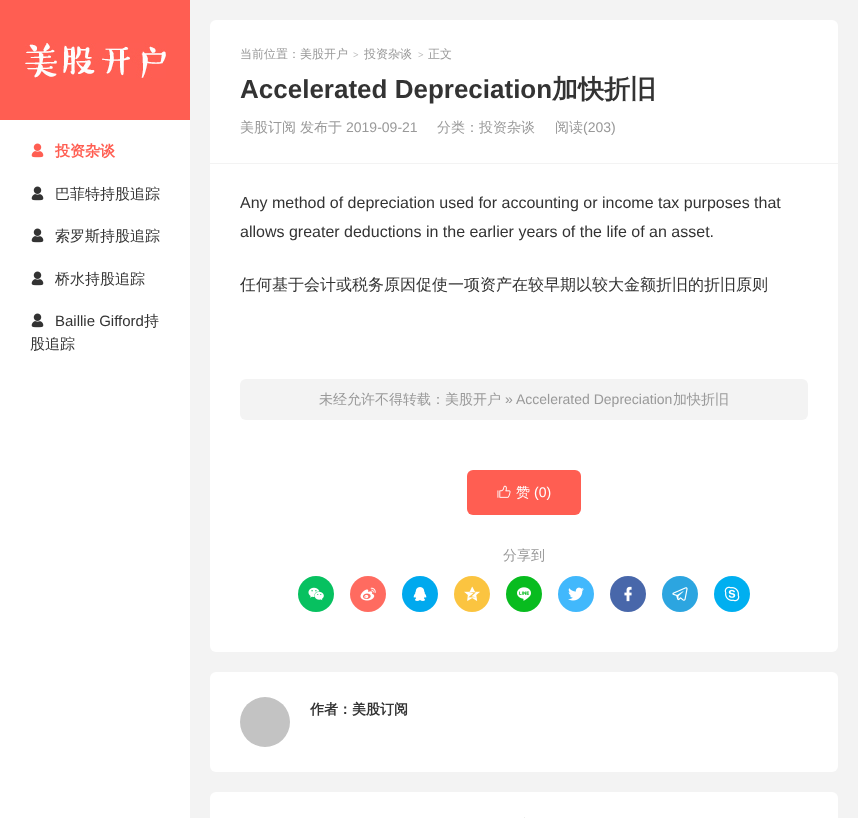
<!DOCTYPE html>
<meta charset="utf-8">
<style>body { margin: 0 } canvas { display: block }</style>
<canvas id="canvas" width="858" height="818"></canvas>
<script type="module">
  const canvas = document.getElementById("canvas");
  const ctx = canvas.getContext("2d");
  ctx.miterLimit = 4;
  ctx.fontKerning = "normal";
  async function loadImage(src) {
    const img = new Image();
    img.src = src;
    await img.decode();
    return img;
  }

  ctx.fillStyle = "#f3f3f3";
  ctx.fillRect(0, 0, 858, 818);
  ctx.fillStyle = "#ffffff";
  ctx.fillRect(0, 120, 190, 698);
  ctx.fillStyle = "#ff5e52";
  ctx.fillRect(0, 0, 190, 120);
  ctx.drawImage(await loadImage("img1.png"), 25, 43, 141, 35);
  ctx.drawImage(await loadImage("img2.png"), 31, 143, 13, 15);
  ctx.font = "bold 15px WenQuanYi Zen Hei";
  ctx.fillText("投资杂谈", 55, 156);
  ctx.drawImage(await loadImage("img3.png"), 31, 186, 13, 15);
  ctx.font = "500 15px WenQuanYi Zen Hei";
  ctx.fillStyle = "#333333";
  ctx.fillText("巴菲特持股追踪", 55, 199);
  ctx.drawImage(await loadImage("img3.png"), 31, 228, 13, 15);
  ctx.fillText("索罗斯持股追踪", 55, 241);
  ctx.drawImage(await loadImage("img3.png"), 31, 271, 13, 15);
  ctx.fillText("桥水持股追踪", 55, 284);
  ctx.drawImage(await loadImage("img3.png"), 31, 313, 13, 15);
  ctx.font = "15px Liberation Sans";
  ctx.fillText("Baillie Gifford", 55, 326);
  ctx.font = "500 15px WenQuanYi Zen Hei";
  ctx.fillText("持", 144, 326);
  ctx.fillText("股追踪", 30, 349);
  ctx.fillStyle = "#ffffff";
  ctx.beginPath();
  ctx.roundRect(210, 20, 628, 144, [6, 6, 0, 0]);
  ctx.fill();
  ctx.fillStyle = "#f3f3f3";
  ctx.fillRect(210, 163, 628, 1);
  ctx.font = "500 12px WenQuanYi Zen Hei";
  ctx.fillStyle = "#999999";
  ctx.fillText("当前位置：美股开户", 240, 58);
  ctx.font = "bold 10px Liberation Serif";
  ctx.fillStyle = "#bbbbbb";
  ctx.fillText(">", 353, 58);
  ctx.font = "500 12px WenQuanYi Zen Hei";
  ctx.fillStyle = "#999999";
  ctx.fillText("投资杂谈", 364, 58);
  ctx.font = "bold 10px Liberation Serif";
  ctx.fillStyle = "#bbbbbb";
  ctx.fillText(">", 418, 58);
  ctx.font = "500 12px WenQuanYi Zen Hei";
  ctx.fillStyle = "#999999";
  ctx.fillText("正文", 428, 58);
  ctx.font = "bold 26px Liberation Sans";
  ctx.fillStyle = "#333333";
  ctx.fillText("Accelerated Depreciation", 240, 98);
  ctx.font = "bold 26px WenQuanYi Zen Hei";
  ctx.fillText("加快折旧", 552, 98);
  ctx.font = "500 14px WenQuanYi Zen Hei";
  ctx.fillStyle = "#999999";
  ctx.fillText("美股订阅", 240, 132);
  ctx.fillText("发布于", 300, 132);
  ctx.font = "14px Liberation Sans";
  ctx.fillText("2019-09-21", 346, 132);
  ctx.font = "500 14px WenQuanYi Zen Hei";
  ctx.fillText("分类：投资杂谈", 437, 132);
  ctx.fillText("阅读", 555, 132);
  ctx.font = "14px Liberation Sans";
  ctx.fillText("(203)", 583, 132);
  ctx.fillStyle = "#ffffff";
  ctx.fillRect(210, 164, 628, 306);
  ctx.font = "16px Liberation Sans";
  ctx.fillStyle = "#333333";
  ctx.fillText("Any method of depreciation used for accounting or income tax purposes that", 240, 208);
  ctx.fillText("allows greater deductions in the earlier years of the life of an asset.", 240, 237);
  ctx.font = "500 16px WenQuanYi Zen Hei";
  ctx.fillText("任何基于会计或税务原因促使一项资产在较早期以较大金额折旧的折旧原则", 240, 290);
  ctx.fillStyle = "#f3f3f3";
  ctx.beginPath();
  ctx.roundRect(240, 379, 568, 41, 6);
  ctx.fill();
  ctx.font = "500 14px WenQuanYi Zen Hei";
  ctx.fillStyle = "#999999";
  ctx.fillText("未经允许不得转载：美股开户", 319, 404);
  ctx.font = "14px Liberation Sans";
  ctx.fillText("» Accelerated Depreciation", 505, 404);
  ctx.font = "500 14px WenQuanYi Zen Hei";
  ctx.fillText("加快折旧", 673, 404);
  ctx.fillStyle = "#ffffff";
  ctx.beginPath();
  ctx.roundRect(210, 470, 628, 182, [0, 0, 6, 6]);
  ctx.fill();
  ctx.fillStyle = "#ff5e52";
  ctx.beginPath();
  ctx.roundRect(467, 470, 114, 45, 6);
  ctx.fill();
  ctx.drawImage(await loadImage("img4.png"), 497, 485, 14, 13);
  ctx.fillStyle = "#ffffff";
  ctx.fillText("赞", 516, 497);
  ctx.font = "14px Liberation Sans";
  ctx.fillText("(0)", 534, 497);
  ctx.font = "500 14px WenQuanYi Zen Hei";
  ctx.fillStyle = "#999999";
  ctx.fillText("分享到", 503, 560);
  ctx.fillStyle = "#07c160";
  ctx.beginPath();
  ctx.arc(316, 594, 18, 0, Math.PI * 2);
  ctx.fill();
  ctx.drawImage(await loadImage("img5.png"), 308, 587, 16, 14);
  ctx.fillStyle = "#ff6b60";
  ctx.beginPath();
  ctx.arc(368, 594, 18, 0, Math.PI * 2);
  ctx.fill();
  ctx.drawImage(await loadImage("img6.png"), 360, 587, 16, 14);
  ctx.fillStyle = "#00a9ee";
  ctx.beginPath();
  ctx.arc(420, 594, 18, 0, Math.PI * 2);
  ctx.fill();
  ctx.drawImage(await loadImage("img7.png"), 413, 587, 14, 14);
  ctx.fillStyle = "#fbc440";
  ctx.beginPath();
  ctx.arc(472, 594, 18, 0, Math.PI * 2);
  ctx.fill();
  ctx.drawImage(await loadImage("img8.png"), 464, 586, 16, 15);
  ctx.fillStyle = "#08bc1f";
  ctx.beginPath();
  ctx.arc(524, 594, 18, 0, Math.PI * 2);
  ctx.fill();
  ctx.drawImage(await loadImage("img9.png"), 517, 587, 14, 14);
  ctx.fillStyle = "#41b8fc";
  ctx.beginPath();
  ctx.arc(576, 594, 18, 0, Math.PI * 2);
  ctx.fill();
  ctx.drawImage(await loadImage("img10.png"), 568, 587, 16, 14);
  ctx.fillStyle = "#4867aa";
  ctx.beginPath();
  ctx.arc(628, 594, 18, 0, Math.PI * 2);
  ctx.fill();
  ctx.drawImage(await loadImage("img11.png"), 624, 586, 8, 16);
  ctx.fillStyle = "#2ca5e0";
  ctx.beginPath();
  ctx.arc(680, 594, 18, 0, Math.PI * 2);
  ctx.fill();
  ctx.drawImage(await loadImage("img12.png"), 672, 587, 16, 14);
  ctx.fillStyle = "#00aff0";
  ctx.beginPath();
  ctx.arc(732, 594, 18, 0, Math.PI * 2);
  ctx.fill();
  ctx.drawImage(await loadImage("img13.png"), 724, 586, 16, 16);
  ctx.fillStyle = "#ffffff";
  ctx.beginPath();
  ctx.roundRect(210, 672, 628, 100, 6);
  ctx.fill();
  ctx.drawImage(await loadImage("img14.png"), 240, 697, 50, 50);
  ctx.font = "bold 14px WenQuanYi Zen Hei";
  ctx.fillStyle = "#333333";
  ctx.fillText("作者：美股订阅", 310, 714);
  ctx.fillStyle = "#ffffff";
  ctx.beginPath();
  ctx.roundRect(210, 792, 628, 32, 6);
  ctx.fill();
  ctx.fillStyle = "#eeeeee";
  ctx.fillRect(524, 817, 1, 1);
</script>
